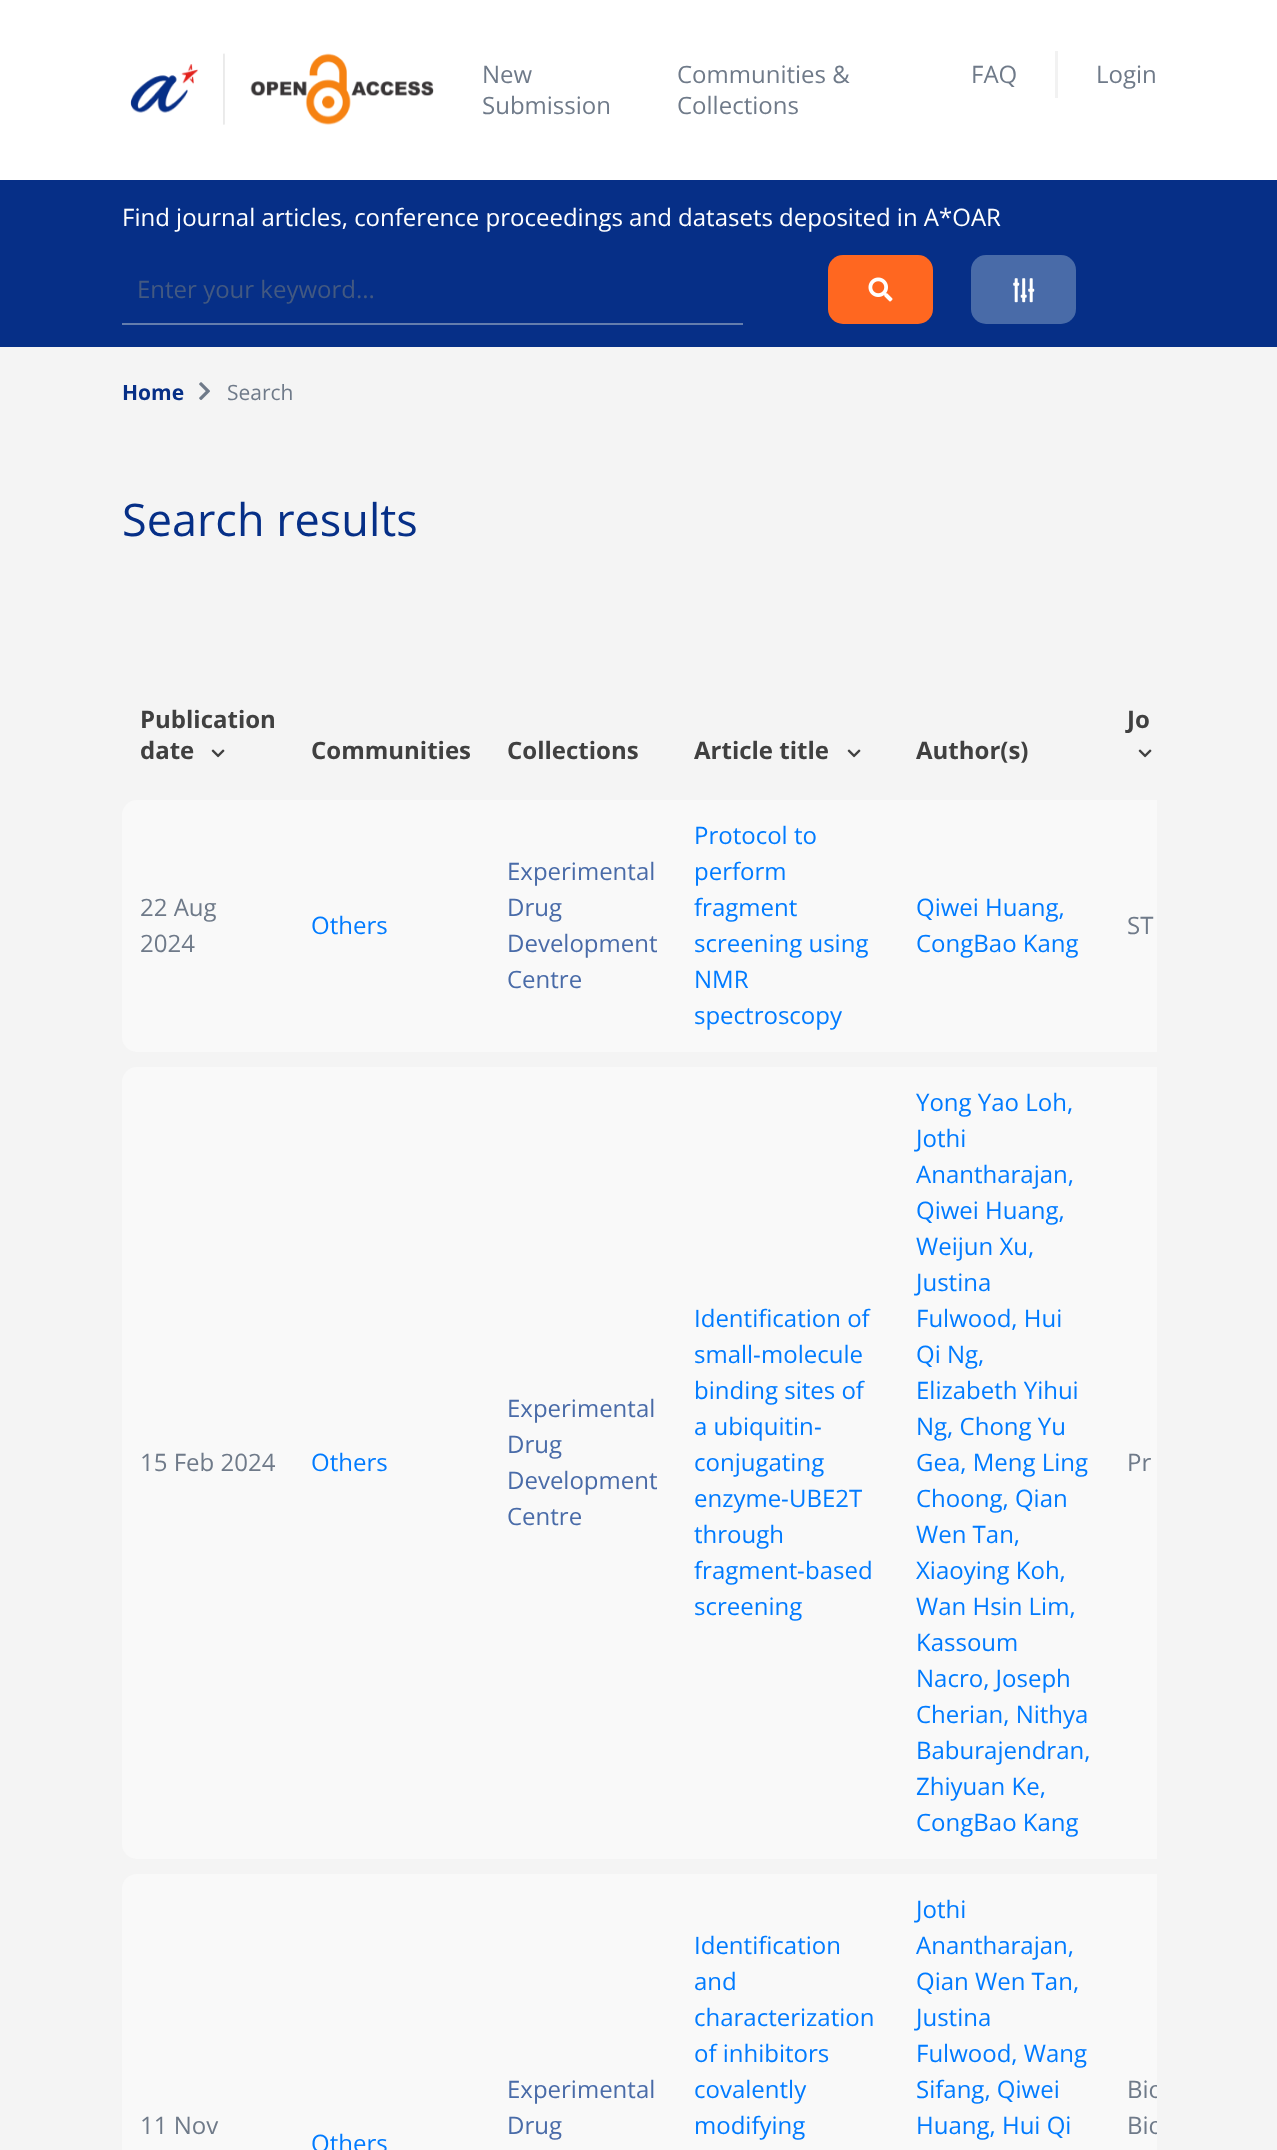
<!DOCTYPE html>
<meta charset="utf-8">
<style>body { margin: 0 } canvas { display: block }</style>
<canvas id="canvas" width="1277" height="2150"></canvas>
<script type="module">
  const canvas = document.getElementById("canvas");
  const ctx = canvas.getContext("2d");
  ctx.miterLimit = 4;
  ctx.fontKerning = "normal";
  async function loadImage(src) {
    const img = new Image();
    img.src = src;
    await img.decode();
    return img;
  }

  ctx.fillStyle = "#f4f4f4";
  ctx.fillRect(0, 0, 1277, 2150);
  ctx.fillStyle = "#ffffff";
  ctx.fillRect(0, 0, 1277, 180);
  ctx.drawImage(await loadImage("img1.png"), 130, 53, 304, 72);
  ctx.font = "24px Open Sans";
  ctx.fillStyle = "#6f7a89";
  ctx.fillText("New", 482, 83);
  ctx.fillText("Submission", 482, 114);
  ctx.fillText("Communities &", 677, 83);
  ctx.fillText("Collections", 677, 114);
  ctx.fillText("FAQ", 971, 83);
  ctx.fillStyle = "#f2f2f2";
  ctx.fillRect(1055, 51, 3, 47);
  ctx.fillStyle = "#6f7a89";
  ctx.fillText("Login", 1096, 83);
  ctx.fillStyle = "#062f87";
  ctx.fillRect(0, 180, 1277, 167);
  ctx.fillStyle = "#ffffff";
  ctx.fillText("Find journal articles, conference proceedings and datasets deposited in A*OAR", 122, 226);
  ctx.fillStyle = "#637dad";
  ctx.fillRect(122, 323, 621, 2);
  ctx.fillStyle = "#435981";
  ctx.fillText("Enter your keyword...", 137, 298);
  ctx.fillStyle = "#ff6720";
  ctx.beginPath();
  ctx.roundRect(828, 255, 105, 69, 15);
  ctx.fill();
  ctx.drawImage(await loadImage("img2.png"), 868, 277, 25, 25);
  ctx.fillStyle = "#496ba8";
  ctx.beginPath();
  ctx.roundRect(971, 255, 105, 69, 15);
  ctx.fill();
  ctx.drawImage(await loadImage("img3.png"), 1013, 278, 22, 25);
  ctx.font = "bold 21px Open Sans";
  ctx.fillStyle = "#062f87";
  ctx.fillText("Home", 122, 400);
  ctx.drawImage(await loadImage("img4.png"), 199, 382, 11, 18);
  ctx.font = "21px Open Sans";
  ctx.fillStyle = "#6f7a89";
  ctx.fillText("Search", 227, 400);
  ctx.font = "45px Open Sans";
  ctx.fillStyle = "#062f87";
  ctx.fillText("Search results", 122, 536);
  ctx.font = "bold 24px Open Sans";
  ctx.fillStyle = "#404040";
  ctx.fillText("Publication", 140, 728);
  ctx.fillText("date", 140, 759);
  ctx.drawImage(await loadImage("img5.png"), 211, 749, 14, 9);
  ctx.fillText("Jo", 1127, 728);
  ctx.drawImage(await loadImage("img5.png"), 1138, 749, 14, 9);
  ctx.fillText("Communities", 311, 759);
  ctx.fillText("Collections", 507, 759);
  ctx.fillText("Article title", 694, 759);
  ctx.drawImage(await loadImage("img5.png"), 847, 749, 14, 9);
  ctx.fillText("Author(s)", 916, 759);
  ctx.fillStyle = "#f9f9f9";
  ctx.beginPath();
  ctx.roundRect(122, 800, 1035, 252, [15, 0, 0, 15]);
  ctx.fill();
  ctx.font = "24px Open Sans";
  ctx.fillStyle = "#6f7a89";
  ctx.fillText("22 Aug", 140, 916);
  ctx.fillText("2024", 140, 952);
  ctx.fillStyle = "#007bff";
  ctx.fillText("Others", 311, 934);
  ctx.fillStyle = "#496ba8";
  ctx.fillText("Experimental", 507, 880);
  ctx.fillText("Drug", 507, 916);
  ctx.fillText("Development", 507, 952);
  ctx.fillText("Centre", 507, 988);
  ctx.fillStyle = "#007bff";
  ctx.fillText("Protocol to", 694, 844);
  ctx.fillText("perform", 694, 880);
  ctx.fillText("fragment", 694, 916);
  ctx.fillText("screening using", 694, 952);
  ctx.fillText("NMR", 694, 988);
  ctx.fillText("spectroscopy", 694, 1024);
  ctx.fillText("Qiwei Huang,", 916, 916);
  ctx.fillText("CongBao Kang", 916, 952);
  ctx.fillStyle = "#6f7a89";
  ctx.fillText("ST", 1127, 934);
  ctx.fillStyle = "#f9f9f9";
  ctx.beginPath();
  ctx.roundRect(122, 1067, 1035, 792, [15, 0, 0, 15]);
  ctx.fill();
  ctx.fillStyle = "#6f7a89";
  ctx.fillText("15 Feb 2024", 140, 1471);
  ctx.fillStyle = "#007bff";
  ctx.fillText("Others", 311, 1471);
  ctx.fillStyle = "#496ba8";
  ctx.fillText("Experimental", 507, 1417);
  ctx.fillText("Drug", 507, 1453);
  ctx.fillText("Development", 507, 1489);
  ctx.fillText("Centre", 507, 1525);
  ctx.fillStyle = "#007bff";
  ctx.fillText("Identification of", 694, 1327);
  ctx.fillText("small", 694, 1363);
  ctx.font = "24px Noto Sans";
  ctx.fillText("‐", 753, 1363);
  ctx.font = "24px Open Sans";
  ctx.fillText("molecule", 761, 1363);
  ctx.fillText("binding sites of", 694, 1399);
  ctx.fillText("a ubiquitin", 694, 1435);
  ctx.font = "24px Noto Sans";
  ctx.fillText("‐", 814, 1435);
  ctx.font = "24px Open Sans";
  ctx.fillText("conjugating", 694, 1471);
  ctx.fillText("enzyme", 694, 1507);
  ctx.font = "24px Noto Sans";
  ctx.fillText("‐", 781, 1507);
  ctx.font = "24px Open Sans";
  ctx.fillText("UBE2T", 789, 1507);
  ctx.fillText("through", 694, 1543);
  ctx.fillText("fragment", 694, 1579);
  ctx.font = "24px Noto Sans";
  ctx.fillText("‐", 797, 1579);
  ctx.font = "24px Open Sans";
  ctx.fillText("based", 805, 1579);
  ctx.fillText("screening", 694, 1615);
  ctx.fillText("Yong Yao Loh,", 916, 1111);
  ctx.fillText("Jothi", 916, 1147);
  ctx.fillText("Anantharajan,", 916, 1183);
  ctx.fillText("Qiwei Huang,", 916, 1219);
  ctx.fillText("Weijun Xu,", 916, 1255);
  ctx.fillText("Justina", 916, 1291);
  ctx.fillText("Fulwood, Hui", 916, 1327);
  ctx.fillText("Qi Ng,", 916, 1363);
  ctx.fillText("Elizabeth Yihui", 916, 1399);
  ctx.fillText("Ng, Chong Yu", 916, 1435);
  ctx.fillText("Gea, Meng Ling", 916, 1471);
  ctx.fillText("Choong, Qian", 916, 1507);
  ctx.fillText("Wen Tan,", 916, 1543);
  ctx.fillText("Xiaoying Koh,", 916, 1579);
  ctx.fillText("Wan Hsin Lim,", 916, 1615);
  ctx.fillText("Kassoum", 916, 1651);
  ctx.fillText("Nacro, Joseph", 916, 1687);
  ctx.fillText("Cherian, Nithya", 916, 1723);
  ctx.fillText("Baburajendran,", 916, 1759);
  ctx.fillText("Zhiyuan Ke,", 916, 1795);
  ctx.fillText("CongBao Kang", 916, 1831);
  ctx.fillStyle = "#6f7a89";
  ctx.fillText("Pr", 1127, 1471);
  ctx.fillStyle = "#f9f9f9";
  ctx.beginPath();
  ctx.moveTo(137, 1874);
  ctx.lineTo(1157, 1874);
  ctx.lineTo(1157, 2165);
  ctx.lineTo(137, 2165);
  ctx.bezierCurveTo(128.5, 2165, 122, 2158.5, 122, 2150);
  ctx.lineTo(122, 1889);
  ctx.bezierCurveTo(122, 1880.5, 128.5, 1874, 137, 1874);
  ctx.closePath();
  ctx.fill();
  ctx.fillStyle = "#6f7a89";
  ctx.fillText("11 Nov", 140, 2134);
  ctx.fillStyle = "#496ba8";
  ctx.fillText("Experimental", 507, 2098);
  ctx.fillText("Drug", 507, 2134);
  ctx.fillStyle = "#007bff";
  ctx.fillText("Identification", 694, 1954);
  ctx.fillText("and", 694, 1990);
  ctx.fillText("characterization", 694, 2026);
  ctx.fillText("of inhibitors", 694, 2062);
  ctx.fillText("covalently", 694, 2098);
  ctx.fillText("modifying", 694, 2134);
  ctx.fillText("Jothi", 916, 1918);
  ctx.fillText("Anantharajan,", 916, 1954);
  ctx.fillText("Qian Wen Tan,", 916, 1990);
  ctx.fillText("Justina", 916, 2026);
  ctx.fillText("Fulwood, Wang", 916, 2062);
  ctx.fillText("Sifang, Qiwei", 916, 2098);
  ctx.fillText("Huang, Hui Qi", 916, 2134);
  ctx.save();
  ctx.beginPath();
  ctx.rect(122, 656, 1035, 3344);
  ctx.clip();
  ctx.fillStyle = "#6f7a89";
  ctx.fillText("Bio", 1127, 2098);
  ctx.fillText("Bio", 1127, 2134);
  ctx.restore();
  ctx.fillText("Others", 311, 2152);
</script>
